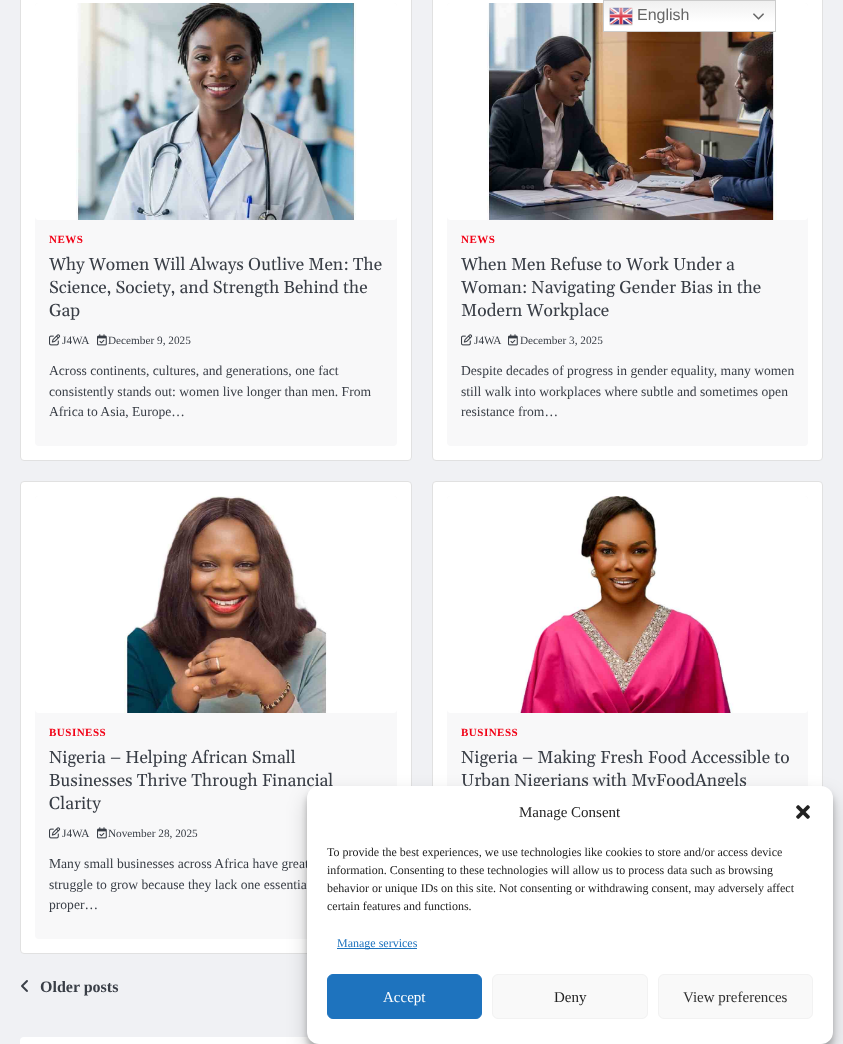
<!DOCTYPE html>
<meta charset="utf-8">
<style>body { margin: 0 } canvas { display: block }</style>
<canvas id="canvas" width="843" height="1044"></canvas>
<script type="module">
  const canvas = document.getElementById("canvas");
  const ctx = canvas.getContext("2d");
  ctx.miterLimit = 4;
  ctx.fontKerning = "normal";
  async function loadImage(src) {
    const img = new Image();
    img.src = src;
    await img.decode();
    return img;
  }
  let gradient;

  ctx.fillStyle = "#f0f1f4";
  ctx.fillRect(0, 0, 843, 1044);
  ctx.fillStyle = "#ffffff";
  ctx.beginPath();
  ctx.roundRect(432.5, -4.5, 390, 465, 3.5);
  ctx.fill();
  ctx.strokeStyle = "#e1e1e1";
  ctx.stroke();
  ctx.fillStyle = "#f8f8f9";
  ctx.beginPath();
  ctx.roundRect(447, 3, 361, 443, 4);
  ctx.fill();
  ctx.drawImage(await loadImage("img6.png"), 447, 3, 361, 217);
  gradient = ctx.createLinearGradient(690, 0, 690, 32);
  gradient.addColorStop(0, "#efefef");
  gradient.addColorStop(0.7, "#ffffff");
  ctx.fillStyle = gradient;
  ctx.fillRect(604, 1, 171, 30);
  ctx.strokeStyle = "#cccccc";
  ctx.strokeRect(603.5, 0.5, 172, 31);
  ctx.drawImage(await loadImage("img1.png"), 609, 7, 24, 19);
  ctx.font = "16px Liberation Sans";
  ctx.fillStyle = "#666666";
  ctx.fillText("English", 637, 20);
  ctx.drawImage(await loadImage("img2.png"), 753, 13, 11, 7);
  ctx.fillStyle = "#ffffff";
  ctx.beginPath();
  ctx.roundRect(20.5, -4.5, 391, 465, 3.5);
  ctx.fill();
  ctx.strokeStyle = "#e1e1e1";
  ctx.stroke();
  ctx.fillStyle = "#f8f8f9";
  ctx.beginPath();
  ctx.roundRect(35, 3, 362, 443, 4);
  ctx.fill();
  ctx.drawImage(await loadImage("img3.png"), 35, 3, 362, 217);
  ctx.letterSpacing = "0.5px";
  ctx.font = "bold 11px Liberation Serif";
  ctx.fillStyle = "#f10015";
  ctx.fillText("NEWS", 49, 243);
  ctx.letterSpacing = "0px";
  ctx.font = "17.4px Gelasio";
  ctx.fillStyle = "#393e46";
  ctx.fillText("Why Women Will Always Outlive Men: The", 49, 270);
  ctx.fillText("Science, Society, and Strength Behind the", 49, 293);
  ctx.fillText("Gap", 49, 316);
  ctx.drawImage(await loadImage("img4.png"), 49, 334, 12, 12);
  ctx.font = "11.25px Liberation Serif";
  ctx.fillText("J4WA", 62, 344);
  ctx.drawImage(await loadImage("img5.png"), 97, 334, 10, 12);
  ctx.fillText("December 9, 2025", 108, 344);
  ctx.font = "13.6px Liberation Serif";
  ctx.fillText("Across continents, cultures, and generations, one fact", 49, 375);
  ctx.fillText("consistently stands out: women live longer than men. From", 49, 396);
  ctx.fillText("Africa to Asia, Europe…", 49, 416);
  ctx.letterSpacing = "0.5px";
  ctx.font = "bold 11px Liberation Serif";
  ctx.fillStyle = "#f10015";
  ctx.fillText("NEWS", 461, 243);
  ctx.letterSpacing = "0px";
  ctx.font = "17.4px Gelasio";
  ctx.fillStyle = "#393e46";
  ctx.fillText("When Men Refuse to Work Under a", 461, 270);
  ctx.fillText("Woman: Navigating Gender Bias in the", 461, 293);
  ctx.fillText("Modern Workplace", 461, 316);
  ctx.drawImage(await loadImage("img4.png"), 461, 334, 12, 12);
  ctx.font = "11.25px Liberation Serif";
  ctx.fillText("J4WA", 474, 344);
  ctx.drawImage(await loadImage("img5.png"), 508, 334, 10, 12);
  ctx.fillText("December 3, 2025", 520, 344);
  ctx.font = "13.6px Liberation Serif";
  ctx.fillText("Despite decades of progress in gender equality, many women", 461, 375);
  ctx.fillText("still walk into workplaces where subtle and sometimes open", 461, 396);
  ctx.fillText("resistance from…", 461, 416);
  ctx.fillStyle = "#ffffff";
  ctx.beginPath();
  ctx.roundRect(20.5, 481.5, 391, 472, 3.5);
  ctx.fill();
  ctx.stroke();
  ctx.fillStyle = "#f8f8f9";
  ctx.beginPath();
  ctx.roundRect(35, 496, 362, 443, 4);
  ctx.fill();
  ctx.drawImage(await loadImage("img7.png"), 35, 496, 362, 217);
  ctx.letterSpacing = "0.5px";
  ctx.font = "bold 11px Liberation Serif";
  ctx.fillStyle = "#f10015";
  ctx.fillText("BUSINESS", 49, 736);
  ctx.letterSpacing = "0px";
  ctx.font = "17.4px Gelasio";
  ctx.fillStyle = "#393e46";
  ctx.fillText("Nigeria – Helping African Small", 49, 763);
  ctx.fillText("Businesses Thrive Through Financial", 49, 786);
  ctx.fillText("Clarity", 49, 809);
  ctx.drawImage(await loadImage("img4.png"), 49, 827, 12, 12);
  ctx.font = "11.25px Liberation Serif";
  ctx.fillText("J4WA", 62, 837);
  ctx.drawImage(await loadImage("img5.png"), 97, 827, 10, 12);
  ctx.fillText("November 28, 2025", 108, 837);
  ctx.font = "13.6px Liberation Serif";
  ctx.fillText("Many small businesses across Africa have great", 49, 868);
  ctx.fillText("struggle to grow because they lack one essentia", 49, 889);
  ctx.fillText("proper…", 49, 909);
  ctx.fillStyle = "#ffffff";
  ctx.beginPath();
  ctx.roundRect(432.5, 481.5, 390, 450, 3.5);
  ctx.fill();
  ctx.stroke();
  ctx.fillStyle = "#f8f8f9";
  ctx.beginPath();
  ctx.roundRect(447, 496, 361, 421, 4);
  ctx.fill();
  ctx.drawImage(await loadImage("img8.png"), 447, 496, 361, 217);
  ctx.letterSpacing = "0.5px";
  ctx.font = "bold 11px Liberation Serif";
  ctx.fillStyle = "#f10015";
  ctx.fillText("BUSINESS", 461, 736);
  ctx.letterSpacing = "0px";
  ctx.font = "17.4px Gelasio";
  ctx.fillStyle = "#393e46";
  ctx.fillText("Nigeria – Making Fresh Food Accessible to", 461, 763);
  ctx.fillText("Urban Nigerians with MyFoodAngels", 461, 786);
  ctx.drawImage(await loadImage("img9.png"), 21, 980, 7, 12);
  ctx.font = "bold 16px Liberation Serif";
  ctx.fillText("Older posts", 40, 992);
  ctx.fillStyle = "#ffffff";
  ctx.beginPath();
  ctx.roundRect(20, 1037, 803, 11, 4);
  ctx.fill();
  ctx.fillStyle = "rgba(0, 0, 0, 0.23)";
  ctx.filter = "blur(3px)";
  ctx.beginPath();
  ctx.roundRect(307, 792, 526, 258, 12);
  ctx.fill();
  ctx.filter = "none";
  ctx.fillStyle = "rgba(0, 0, 0, 0.19)";
  ctx.filter = "blur(10px)";
  ctx.beginPath();
  ctx.roundRect(307, 796, 526, 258, 12);
  ctx.fill();
  ctx.filter = "none";
  ctx.fillStyle = "#ffffff";
  ctx.beginPath();
  ctx.roundRect(307, 786, 526, 258, 12);
  ctx.fill();
  ctx.font = "15px Liberation Serif";
  ctx.fillStyle = "#222222";
  ctx.fillText("Manage Consent", 519, 817);
  ctx.drawImage(await loadImage("img10.png"), 796, 805, 14, 14);
  ctx.font = "12px Liberation Serif";
  ctx.fillText("To provide the best experiences, we use technologies like cookies to store and/or access device", 327, 856);
  ctx.fillText("information. Consenting to these technologies will allow us to process data such as browsing", 327, 874);
  ctx.fillText("behavior or unique IDs on this site. Not consenting or withdrawing consent, may adversely affect", 327, 892);
  ctx.fillText("certain features and functions.", 327, 910);
  ctx.fillStyle = "#1e73be";
  ctx.fillRect(337, 948, 80, 1);
  ctx.fillText("Manage services", 337, 947);
  ctx.beginPath();
  ctx.roundRect(327.5, 974.5, 154, 44, 5.5);
  ctx.fill();
  ctx.strokeStyle = "#1e73be";
  ctx.stroke();
  ctx.font = "15px Liberation Serif";
  ctx.fillStyle = "#ffffff";
  ctx.fillText("Accept", 383, 1002);
  ctx.fillStyle = "#f9f9f9";
  ctx.beginPath();
  ctx.roundRect(492.5, 974.5, 155, 44, 5.5);
  ctx.fill();
  ctx.strokeStyle = "#f2f2f2";
  ctx.stroke();
  ctx.fillStyle = "#222222";
  ctx.fillText("Deny", 554, 1002);
  ctx.fillStyle = "#f9f9f9";
  ctx.beginPath();
  ctx.roundRect(658.5, 974.5, 154, 44, 5.5);
  ctx.fill();
  ctx.stroke();
  ctx.fillStyle = "#333333";
  ctx.fillText("View preferences", 683, 1002);
</script>
